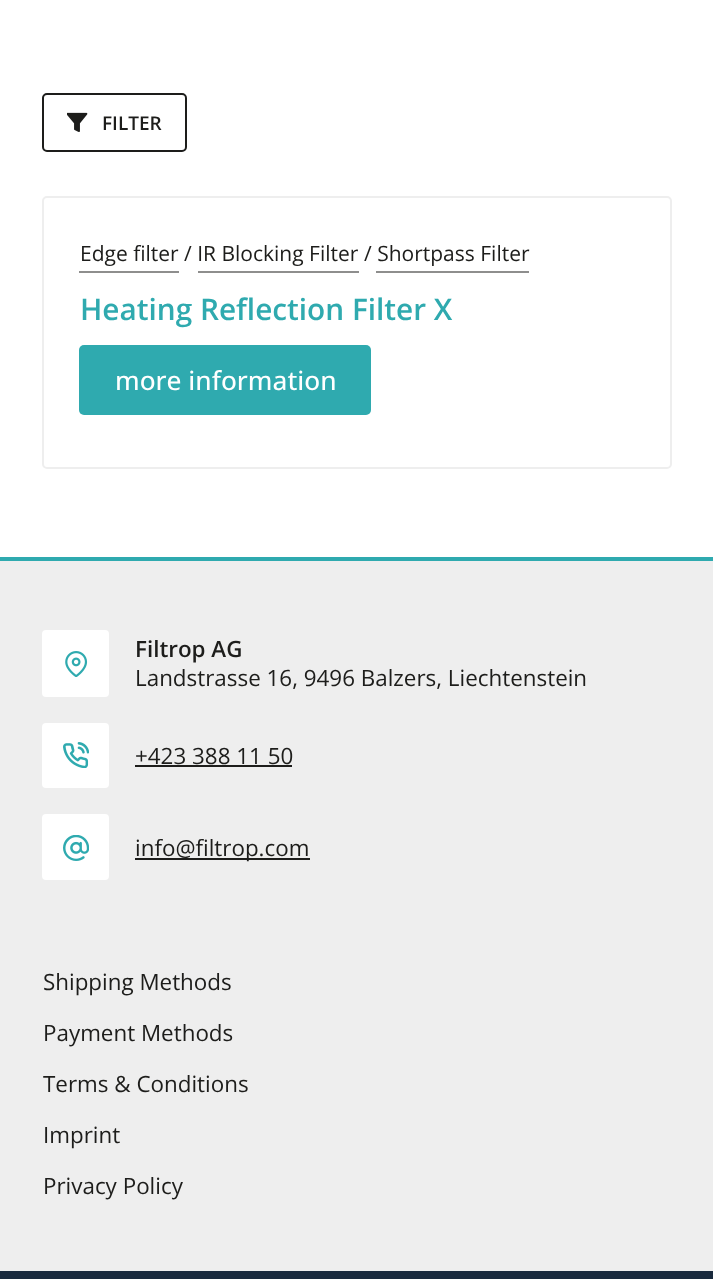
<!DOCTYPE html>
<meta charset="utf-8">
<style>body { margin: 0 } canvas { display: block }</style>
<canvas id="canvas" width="713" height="1279"></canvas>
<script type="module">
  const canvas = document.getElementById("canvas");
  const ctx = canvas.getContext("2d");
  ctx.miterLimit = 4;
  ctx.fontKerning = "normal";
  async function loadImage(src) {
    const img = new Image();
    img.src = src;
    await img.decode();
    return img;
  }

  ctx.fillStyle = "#ffffff";
  ctx.fillRect(0, 0, 713, 1279);
  ctx.beginPath();
  ctx.roundRect(43, 94, 143, 57, 4);
  ctx.strokeStyle = "#1d1d1b";
  ctx.lineWidth = 2;
  ctx.stroke();
  ctx.drawImage(await loadImage("img1.png"), 67, 112, 21, 20);
  ctx.font = "600 19px Open Sans";
  ctx.fillStyle = "#1d1d1b";
  ctx.fillText("FILTER", 102, 130);
  ctx.beginPath();
  ctx.roundRect(43, 197, 628, 271, 4);
  ctx.strokeStyle = "#eeeeee";
  ctx.stroke();
  ctx.font = "21px Open Sans";
  ctx.fillText("Edge filter", 80, 261);
  ctx.fillStyle = "#8e8e8d";
  ctx.fillRect(79, 271, 100, 2);
  ctx.fillStyle = "#1d1d1b";
  ctx.fillText("/ IR Blocking Filter", 184, 261);
  ctx.fillText("/ Shortpass Filter", 364, 261);
  ctx.fillStyle = "#8e8e8d";
  ctx.fillRect(198, 271, 161, 2);
  ctx.fillRect(376, 271, 153, 2);
  ctx.font = "600 29.75px Open Sans";
  ctx.fillStyle = "#2faaaf";
  ctx.fillText("Heating Reflection Filter X", 80, 320);
  ctx.beginPath();
  ctx.roundRect(79, 345, 292, 70, 5);
  ctx.fill();
  ctx.font = "500 26.25px Open Sans";
  ctx.fillStyle = "#ffffff";
  ctx.fillText("more information", 115, 390);
  ctx.fillStyle = "#eeeeee";
  ctx.fillRect(0, 561, 713, 710);
  ctx.fillStyle = "#2faaaf";
  ctx.fillRect(0, 557, 713, 4);
  ctx.fillStyle = "#192a3d";
  ctx.fillRect(0, 1271, 713, 8);
  ctx.fillStyle = "#ffffff";
  ctx.beginPath();
  ctx.roundRect(42, 630, 67, 67, 4);
  ctx.fill();
  ctx.drawImage(await loadImage("img2.png"), 65, 651, 23, 26);
  ctx.font = "600 22.4px Open Sans";
  ctx.fillStyle = "#1d1d1b";
  ctx.fillText("Filtrop AG", 135, 657);
  ctx.font = "22.4px Open Sans";
  ctx.fillText("Landstrasse 16, 9496 Balzers, Liechtenstein", 135, 686);
  ctx.fillStyle = "#ffffff";
  ctx.beginPath();
  ctx.roundRect(42, 723, 67, 65, 4);
  ctx.fill();
  ctx.drawImage(await loadImage("img3.png"), 63, 742, 26, 26);
  ctx.fillStyle = "#1d1d1b";
  ctx.fillText("+423 388 11 50", 135, 764);
  ctx.fillRect(135, 765, 157, 2);
  ctx.fillStyle = "#ffffff";
  ctx.beginPath();
  ctx.roundRect(42, 814, 67, 66, 4);
  ctx.fill();
  ctx.drawImage(await loadImage("img4.png"), 63, 835, 26, 26);
  ctx.fillStyle = "#1d1d1b";
  ctx.fillRect(135, 858, 175, 2);
  ctx.fillText("info@filtrop.com", 135, 856);
  ctx.fillText("Shipping Methods", 43, 990);
  ctx.fillText("Payment Methods", 43, 1041);
  ctx.fillText("Terms & Conditions", 43, 1092);
  ctx.fillText("Imprint", 43, 1143);
  ctx.fillText("Privacy Policy", 43, 1194);
</script>
